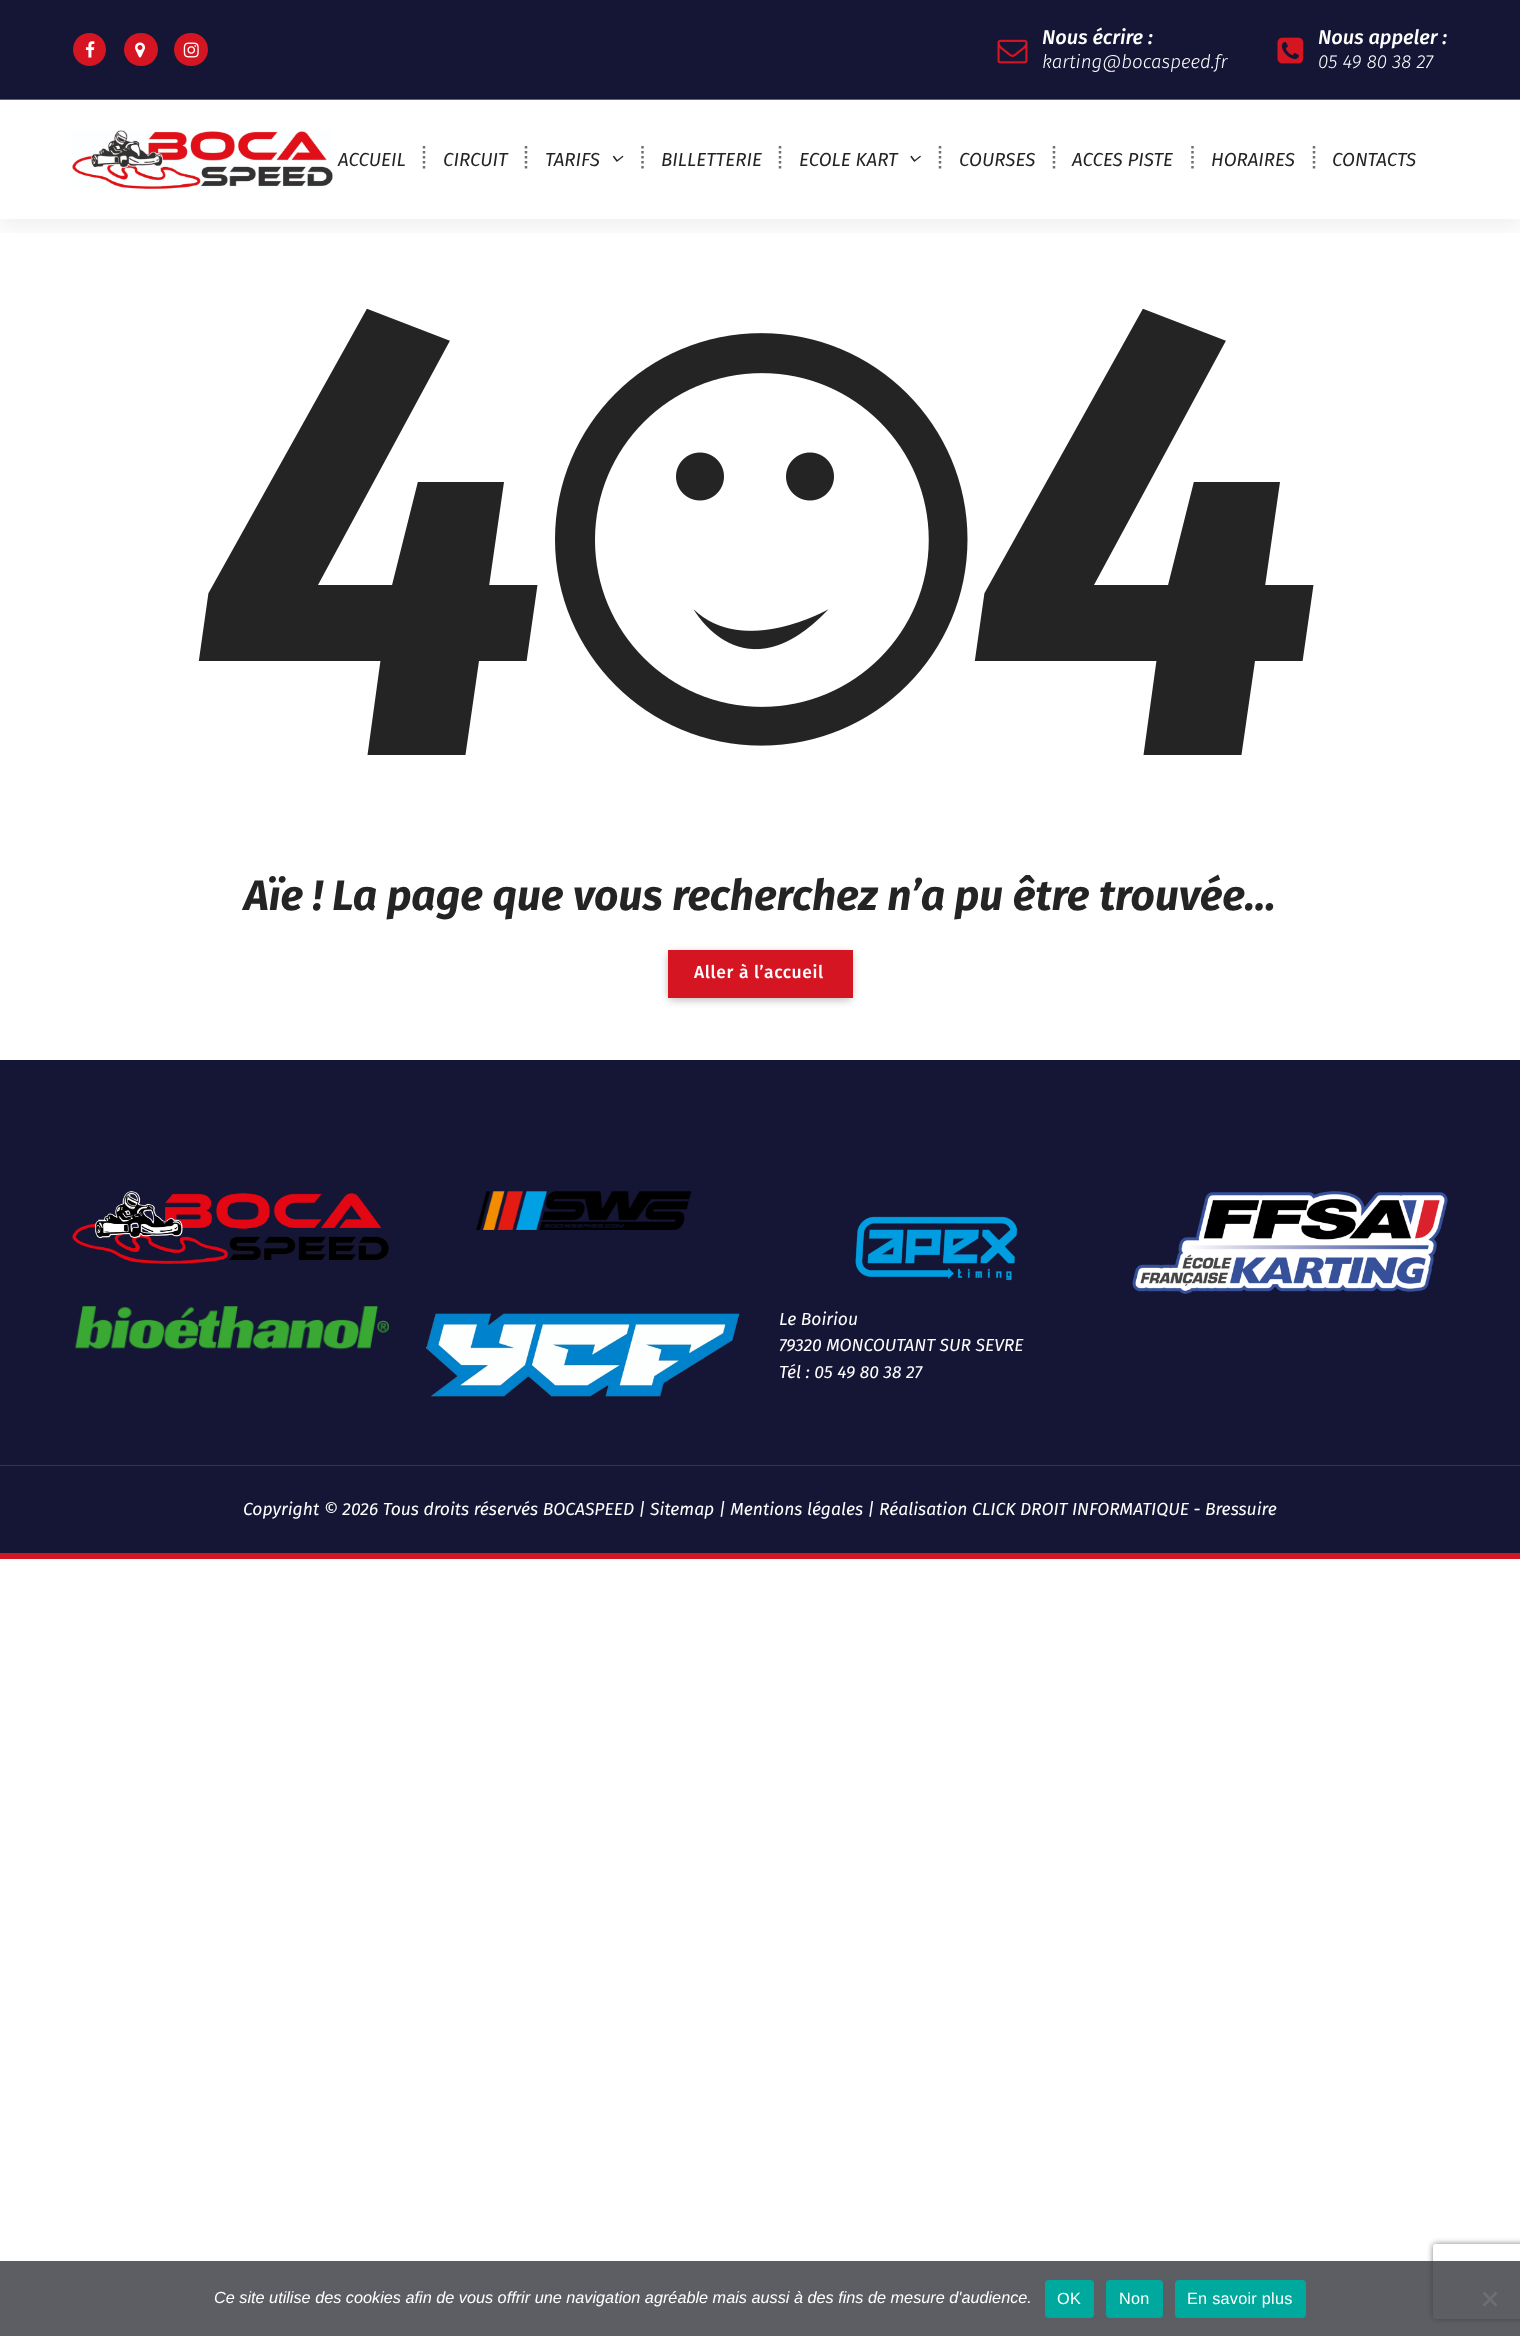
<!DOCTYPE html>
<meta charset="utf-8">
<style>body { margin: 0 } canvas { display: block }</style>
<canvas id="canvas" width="1520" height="2336"></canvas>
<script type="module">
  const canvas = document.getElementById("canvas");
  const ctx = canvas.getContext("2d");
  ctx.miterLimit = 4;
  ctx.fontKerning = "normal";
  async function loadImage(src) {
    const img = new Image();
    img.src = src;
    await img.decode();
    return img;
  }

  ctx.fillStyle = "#ffffff";
  ctx.fillRect(0, 0, 1520, 2336);
  ctx.fillStyle = "#151635";
  ctx.fillRect(0, 0, 1520, 99);
  ctx.fillStyle = "#616172";
  ctx.fillRect(0, 99, 1520, 1);
  ctx.fillStyle = "#d61523";
  ctx.beginPath();
  ctx.arc(89.5, 49.5, 16.5, 0, Math.PI * 2);
  ctx.fill();
  ctx.drawImage(await loadImage("img1.png"), 85, 41, 10, 17);
  ctx.beginPath();
  ctx.roundRect(124, 33, 34, 33, 16.5);
  ctx.fill();
  ctx.drawImage(await loadImage("img2.png"), 135, 42, 10, 16);
  ctx.beginPath();
  ctx.roundRect(174, 33, 34, 33, 16.5);
  ctx.fill();
  ctx.drawImage(await loadImage("img3.png"), 183, 42, 16, 16);
  ctx.drawImage(await loadImage("img4.png"), 997, 39, 31, 25);
  ctx.font = "italic 500 20px Fira Sans";
  ctx.fillStyle = "#ffffff";
  ctx.fillText("Nous écrire :", 1042, 44);
  ctx.font = "italic 300 18.75px Fira Sans";
  ctx.fillText("karting@bocaspeed.fr", 1042, 68);
  ctx.drawImage(await loadImage("img5.png"), 1277, 37, 27, 27);
  ctx.font = "italic 500 20px Fira Sans";
  ctx.fillText("Nous appeler :", 1318, 44);
  ctx.font = "italic 300 18.75px Fira Sans";
  ctx.fillText("05 49 80 38 27", 1318, 68);
  ctx.save();
  ctx.beginPath();
  ctx.rect(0, 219, 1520, 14);
  ctx.clip();
  ctx.fillStyle = "rgba(0, 0, 0, 0.05)";
  ctx.filter = "blur(9.5px)";
  ctx.beginPath();
  ctx.rect(0, 113, 1520, 118);
  ctx.fill();
  ctx.filter = "none";
  ctx.restore();
  ctx.drawImage(await loadImage("img6.png"), 72, 130, 261, 59);
  ctx.font = "italic 18.75px Fira Sans";
  ctx.fillStyle = "#242424";
  ctx.fillText("ACCUEIL", 338, 166);
  ctx.beginPath();
  ctx.moveTo(424, 146);
  ctx.lineTo(424, 171);
  ctx.strokeStyle = "#717171";
  ctx.lineWidth = 2.5;
  ctx.setLineDash([2.5, 2.5]);
  ctx.stroke();
  ctx.fillText("CIRCUIT", 443, 166);
  ctx.beginPath();
  ctx.moveTo(526, 146);
  ctx.lineTo(526, 171);
  ctx.stroke();
  ctx.fillText("TARIFS", 545, 166);
  ctx.drawImage(await loadImage("img7.png"), 612, 155, 12, 7);
  ctx.beginPath();
  ctx.moveTo(642.5, 146);
  ctx.lineTo(642.5, 171);
  ctx.stroke();
  ctx.fillText("BILLETTERIE", 661, 166);
  ctx.beginPath();
  ctx.moveTo(780, 146);
  ctx.lineTo(780, 171);
  ctx.stroke();
  ctx.fillText("ECOLE KART", 799, 166);
  ctx.drawImage(await loadImage("img8.png"), 910, 155, 11, 7);
  ctx.beginPath();
  ctx.moveTo(940, 146);
  ctx.lineTo(940, 171);
  ctx.stroke();
  ctx.fillText("COURSES", 959, 166);
  ctx.beginPath();
  ctx.moveTo(1054, 146);
  ctx.lineTo(1054, 171);
  ctx.stroke();
  ctx.fillText("ACCES PISTE", 1072, 166);
  ctx.beginPath();
  ctx.moveTo(1192.5, 146);
  ctx.lineTo(1192.5, 171);
  ctx.stroke();
  ctx.fillText("HORAIRES", 1211, 166);
  ctx.beginPath();
  ctx.moveTo(1314, 146);
  ctx.lineTo(1314, 171);
  ctx.stroke();
  ctx.fillText("CONTACTS", 1332, 166);
  ctx.font = "italic bold 644px Fira Sans";
  ctx.fillText("4", 193, 755);
  ctx.drawImage(await loadImage("img9.png"), 555, 333, 413, 413);
  ctx.fillText("4", 969, 755);
  ctx.font = "italic bold 42.5px Fira Sans";
  ctx.fillText("Aïe ! La page que vous recherchez n’a pu être trouvée…", 244, 910);
  ctx.fillStyle = "rgba(0, 0, 0, 0.32)";
  ctx.filter = "blur(5px)";
  ctx.beginPath();
  ctx.rect(669, 954, 182, 45);
  ctx.fill();
  ctx.filter = "none";
  ctx.fillStyle = "#d61523";
  ctx.fillRect(668, 950, 185, 48);
  ctx.letterSpacing = "0.6px";
  ctx.font = "500 17.5px Fira Sans";
  ctx.fillStyle = "#ffffff";
  ctx.fillText("Aller à l’accueil", 694, 978);
  ctx.fillStyle = "#151535";
  ctx.fillRect(0, 1060, 1520, 493);
  ctx.fillStyle = "#34344b";
  ctx.fillRect(0, 1465, 1520, 1);
  ctx.drawImage(await loadImage("img10.png"), 72, 1191, 317, 73);
  ctx.drawImage(await loadImage("img11.png"), 476, 1191, 216, 39);
  ctx.drawImage(await loadImage("img12.png"), 855, 1216, 163, 65);
  ctx.drawImage(await loadImage("img13.png"), 1132, 1191, 316, 103);
  ctx.drawImage(await loadImage("img14.png"), 74, 1306, 315, 44);
  ctx.drawImage(await loadImage("img15.png"), 426, 1313, 314, 84);
  ctx.letterSpacing = "0px";
  ctx.font = "italic 17.5px Fira Sans";
  ctx.fillStyle = "#ffffff";
  ctx.fillText("Le Boiriou", 779, 1325);
  ctx.fillText("79320 MONCOUTANT SUR SEVRE", 779, 1351);
  ctx.fillText("Tél : 05 49 80 38 27", 779, 1378);
  ctx.fillStyle = "#d61523";
  ctx.fillRect(0, 1553, 1520, 6);
  ctx.fillStyle = "#ffffff";
  ctx.fillText("Copyright © 2026 Tous droits réservés BOCASPEED | Sitemap | Mentions légales | Réalisation CLICK DROIT INFORMATIQUE - Bressuire", 243, 1515);
  ctx.save();
  ctx.beginPath();
  ctx.moveTo(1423, 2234);
  ctx.lineTo(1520, 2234);
  ctx.lineTo(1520, 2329);
  ctx.lineTo(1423, 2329);
  ctx.closePath();
  ctx.moveTo(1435.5, 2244);
  ctx.lineTo(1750.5, 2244);
  ctx.bezierCurveTo(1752, 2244, 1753, 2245, 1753, 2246.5);
  ctx.lineTo(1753, 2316.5);
  ctx.bezierCurveTo(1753, 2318, 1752, 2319, 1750.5, 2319);
  ctx.lineTo(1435.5, 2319);
  ctx.bezierCurveTo(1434, 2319, 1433, 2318, 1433, 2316.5);
  ctx.lineTo(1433, 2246.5);
  ctx.bezierCurveTo(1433, 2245, 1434, 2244, 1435.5, 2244);
  ctx.closePath();
  ctx.clip("evenodd");
  ctx.fillStyle = "#808080";
  ctx.filter = "blur(3px)";
  ctx.beginPath();
  ctx.roundRect(1433, 2244, 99, 75, 2.5);
  ctx.fill();
  ctx.filter = "none";
  ctx.restore();
  ctx.fillStyle = "rgba(50, 50, 58, 0.79)";
  ctx.fillRect(0, 2261, 1520, 75);
  ctx.font = "italic 16.25px Liberation Sans";
  ctx.fillStyle = "#ffffff";
  ctx.fillText("Ce site utilise des cookies afin de vous offrir une navigation agréable mais aussi à des fins de mesure d'audience.", 214, 2303);
  ctx.fillStyle = "#00a99d";
  ctx.beginPath();
  ctx.roundRect(1045, 2280, 49, 38, 4);
  ctx.fill();
  ctx.letterSpacing = "0.25px";
  ctx.font = "16.25px Liberation Sans";
  ctx.fillStyle = "#ffffff";
  ctx.fillText("OK", 1057, 2304);
  ctx.fillStyle = "#00a99d";
  ctx.beginPath();
  ctx.roundRect(1106, 2280, 57, 38, 4);
  ctx.fill();
  ctx.fillStyle = "#ffffff";
  ctx.fillText("Non", 1119, 2304);
  ctx.fillStyle = "#00a99d";
  ctx.beginPath();
  ctx.roundRect(1175, 2280, 131, 38, 4);
  ctx.fill();
  ctx.fillStyle = "#ffffff";
  ctx.fillText("En savoir plus", 1187, 2304);
  ctx.fillStyle = "#6f6f72";
  ctx.beginPath();
  ctx.moveTo(1495.5, 2291.5);
  ctx.lineTo(1497.5, 2293.5);
  ctx.lineTo(1484.5, 2306.5);
  ctx.lineTo(1482.5, 2305);
  ctx.closePath();
  ctx.fill();
  ctx.beginPath();
  ctx.moveTo(1482.5, 2293.5);
  ctx.lineTo(1484.5, 2291.5);
  ctx.lineTo(1497.5, 2305);
  ctx.lineTo(1495.5, 2306.5);
  ctx.closePath();
  ctx.fill();
</script>
